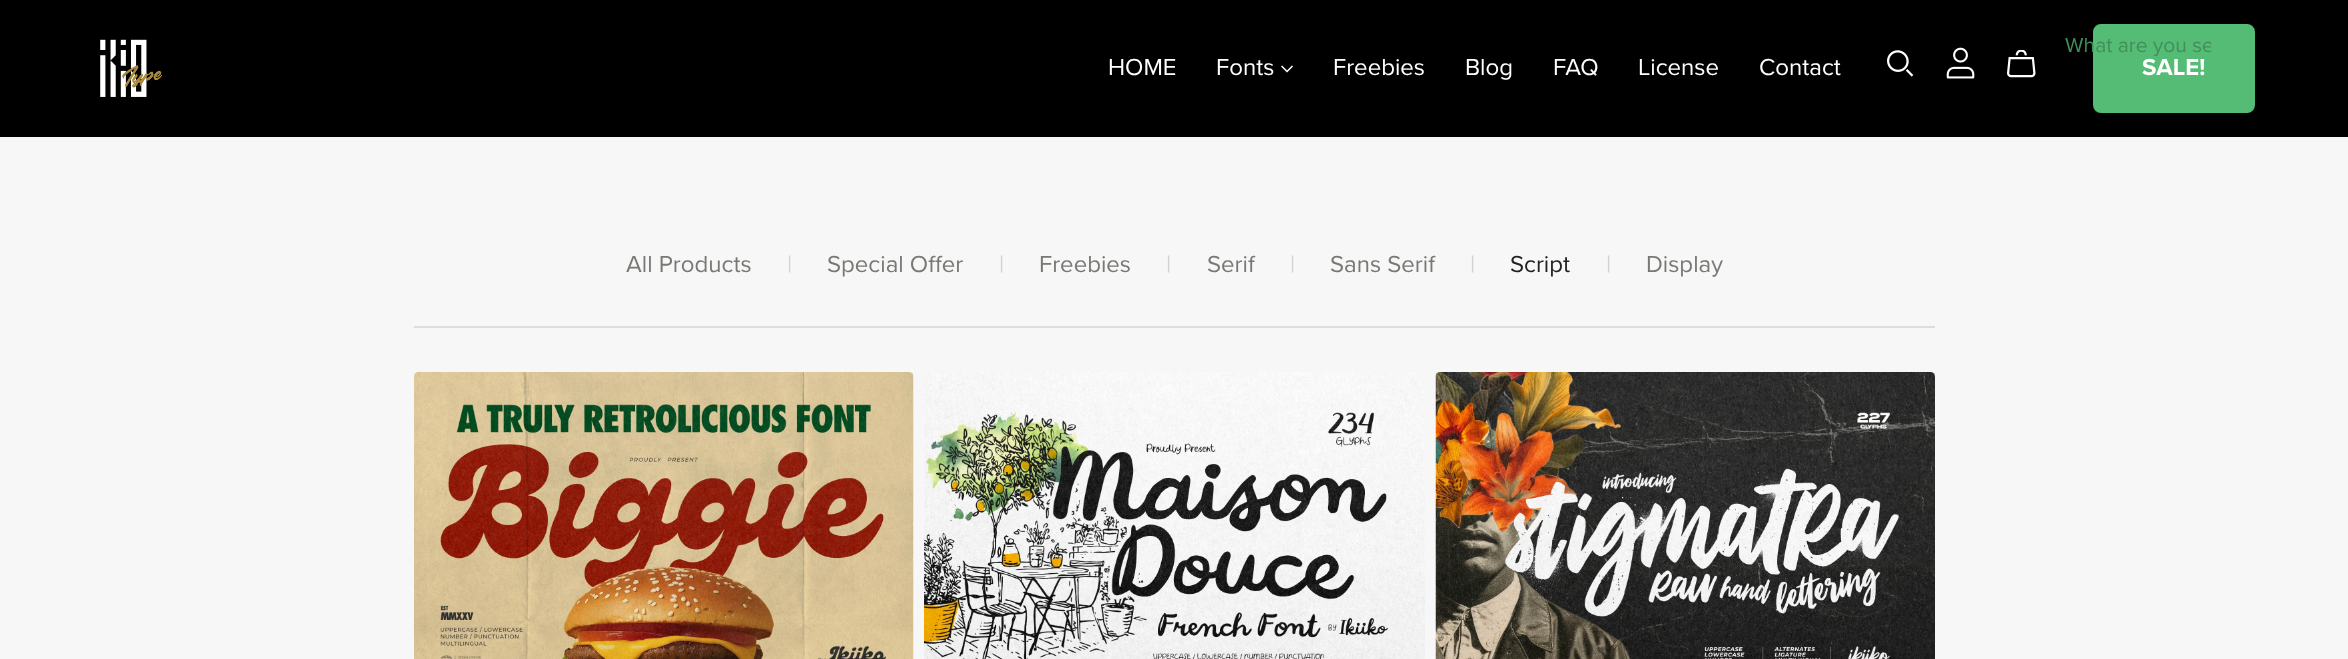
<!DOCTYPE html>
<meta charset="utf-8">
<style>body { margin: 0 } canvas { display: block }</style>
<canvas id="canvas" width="2348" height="659"></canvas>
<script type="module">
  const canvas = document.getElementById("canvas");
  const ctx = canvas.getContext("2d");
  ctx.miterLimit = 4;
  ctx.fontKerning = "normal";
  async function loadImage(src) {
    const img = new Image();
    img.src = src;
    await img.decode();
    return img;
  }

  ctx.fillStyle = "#f7f7f7";
  ctx.fillRect(0, 0, 2348, 659);
  ctx.fillStyle = "#000000";
  ctx.fillRect(0, 0, 2348, 137);
  ctx.drawImage(await loadImage("img1.png"), 100, 39, 62, 58);
  ctx.font = "24px Proxima Nova";
  ctx.fillStyle = "#ffffff";
  ctx.fillText("HOME", 1108, 75);
  ctx.fillText("Fonts", 1216, 75);
  ctx.drawImage(await loadImage("img2.png"), 1281, 65, 12, 8);
  ctx.fillText("Freebies", 1333, 75);
  ctx.fillText("Blog", 1465, 75);
  ctx.fillText("FAQ", 1553, 75);
  ctx.fillText("License", 1638, 75);
  ctx.fillText("Contact", 1759, 75);
  ctx.drawImage(await loadImage("img3.png"), 1946, 47, 29, 32);
  ctx.drawImage(await loadImage("img4.png"), 2007, 50, 29, 28);
  ctx.fillStyle = "#55bc75";
  ctx.beginPath();
  ctx.roundRect(2094, 25, 160, 87, 7);
  ctx.fill();
  ctx.strokeStyle = "#55bc75";
  ctx.lineWidth = 2;
  ctx.stroke();
  ctx.save();
  ctx.beginPath();
  ctx.rect(2064, 33, 147, 26);
  ctx.clip();
  ctx.font = "21px Proxima Nova";
  ctx.fillStyle = "#418f59";
  ctx.fillText("What are you se", 2065, 52);
  ctx.restore();
  ctx.drawImage(await loadImage("img5.png"), 1887, 50, 27, 27);
  ctx.font = "bold 24px Proxima Nova";
  ctx.fillStyle = "#ffffff";
  ctx.fillText("SALE!", 2142, 75);
  ctx.font = "24px Proxima Nova";
  ctx.fillStyle = "#797875";
  ctx.fillText("All Products", 626, 272);
  ctx.fillStyle = "#d1d1d0";
  ctx.fillText("|", 787, 272);
  ctx.fillStyle = "#797875";
  ctx.fillText("Special Offer", 827, 272);
  ctx.fillStyle = "#d1d1d0";
  ctx.fillText("|", 999, 272);
  ctx.fillStyle = "#797875";
  ctx.fillText("Freebies", 1039, 272);
  ctx.fillStyle = "#d1d1d0";
  ctx.fillText("|", 1166, 272);
  ctx.fillStyle = "#797875";
  ctx.fillText("Serif", 1207, 272);
  ctx.fillStyle = "#d1d1d0";
  ctx.fillText("|", 1290, 272);
  ctx.fillStyle = "#797875";
  ctx.fillText("Sans Serif", 1330, 272);
  ctx.fillStyle = "#d1d1d0";
  ctx.fillText("|", 1470, 272);
  ctx.fillStyle = "#222222";
  ctx.fillText("Script", 1510, 272);
  ctx.fillStyle = "#d1d1d0";
  ctx.fillText("|", 1606, 272);
  ctx.fillStyle = "#797875";
  ctx.fillText("Display", 1646, 272);
  ctx.fillStyle = "#dddddd";
  ctx.fillRect(414, 326, 1521, 2);
  ctx.drawImage(await loadImage("img6.png"), 414, 372, 500, 287);
  ctx.drawImage(await loadImage("img7.png"), 924, 372, 501, 287);
  ctx.drawImage(await loadImage("img8.png"), 1435, 372, 500, 287);
</script>
